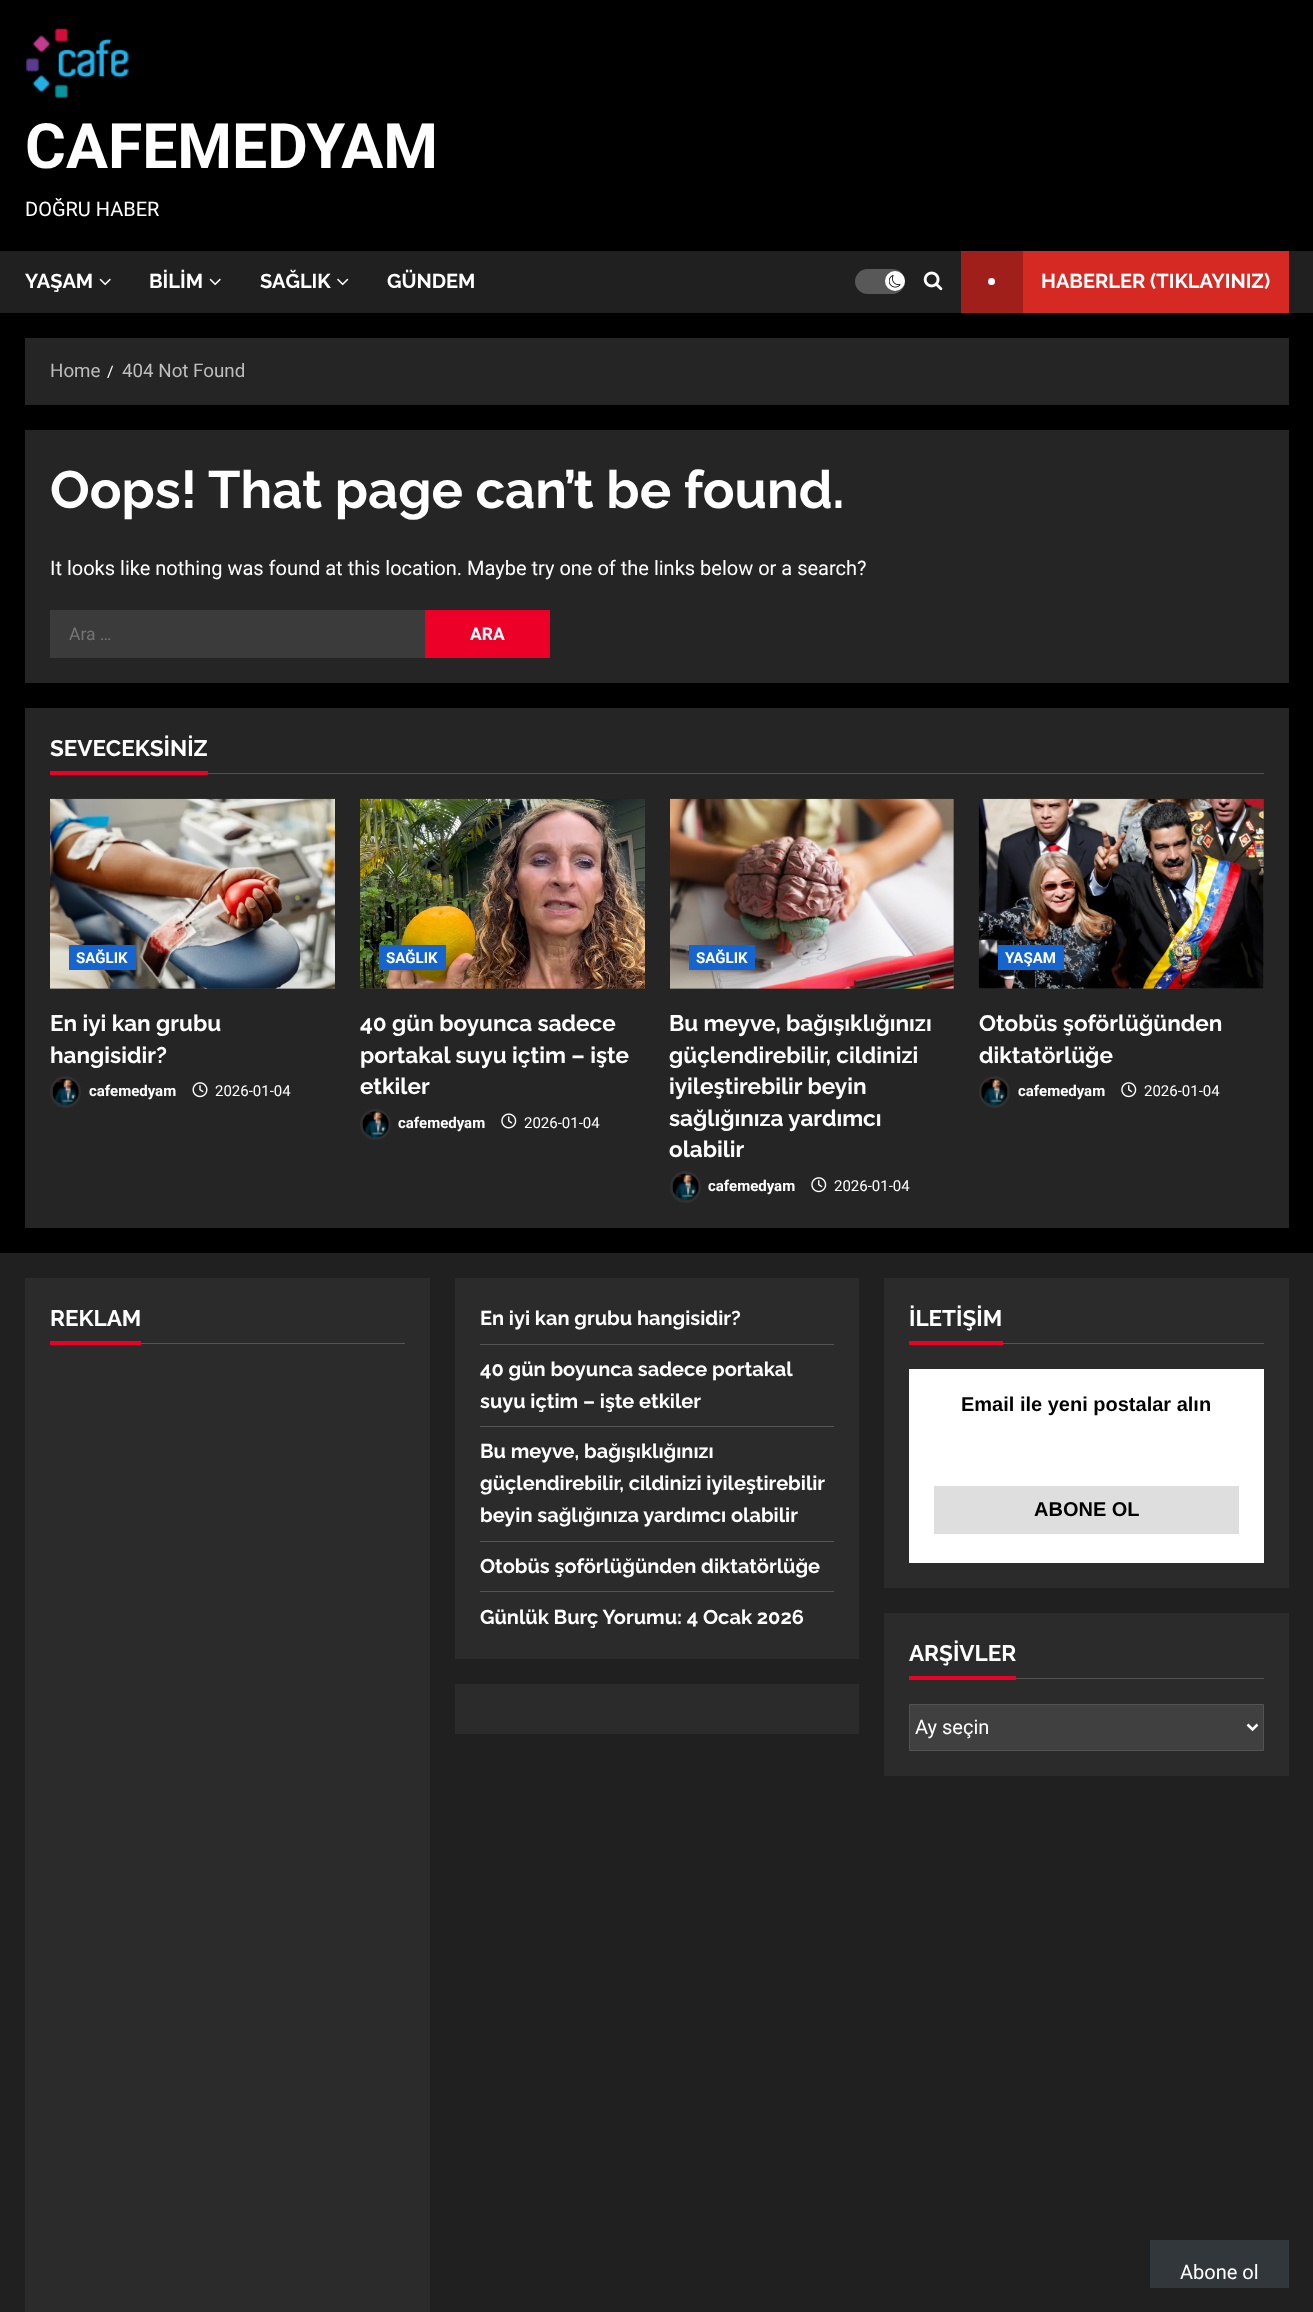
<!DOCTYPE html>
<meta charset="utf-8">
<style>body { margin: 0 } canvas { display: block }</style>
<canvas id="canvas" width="1313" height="2312"></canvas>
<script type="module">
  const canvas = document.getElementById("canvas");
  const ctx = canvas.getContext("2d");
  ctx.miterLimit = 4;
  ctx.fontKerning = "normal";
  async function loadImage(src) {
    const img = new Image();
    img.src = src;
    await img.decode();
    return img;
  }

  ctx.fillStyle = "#000000";
  ctx.fillRect(0, 0, 1313, 2312);
  ctx.drawImage(await loadImage("img1.png"), 26, 28, 103, 70);
  ctx.font = "bold 62.5px Roboto";
  ctx.fillStyle = "#ffffff";
  ctx.fillText("CAFEMEDYAM", 25, 168);
  ctx.font = "20px Roboto";
  ctx.fillText("DOĞRU HABER", 25, 216);
  ctx.fillStyle = "#202020";
  ctx.fillRect(0, 251, 1313, 62);
  ctx.font = "bold 20px Raleway";
  ctx.fillStyle = "#ffffff";
  ctx.fillText("YAŞAM", 25, 288);
  ctx.drawImage(await loadImage("img2.png"), 99, 278, 12, 8);
  ctx.fillText("BİLİM", 149, 288);
  ctx.drawImage(await loadImage("img2.png"), 209, 278, 12, 8);
  ctx.fillText("SAĞLIK", 260, 288);
  ctx.drawImage(await loadImage("img3.png"), 337, 278, 12, 8);
  ctx.fillText("GÜNDEM", 387, 288);
  ctx.fillStyle = "#585858";
  ctx.beginPath();
  ctx.roundRect(855, 269, 50, 25, 12.5);
  ctx.fill();
  ctx.fillStyle = "#ffffff";
  ctx.beginPath();
  ctx.arc(895, 281, 10, 0, Math.PI * 2);
  ctx.fill();
  ctx.drawImage(await loadImage("img4.png"), 889, 275, 12, 13);
  ctx.drawImage(await loadImage("img5.png"), 923, 271, 20, 20);
  ctx.fillStyle = "#d72924";
  ctx.fillRect(1023, 251, 266, 62);
  ctx.fillStyle = "#a11f1b";
  ctx.fillRect(961, 251, 62, 62);
  ctx.fillStyle = "#ffffff";
  ctx.beginPath();
  ctx.arc(991.5, 281.5, 3.5, 0, Math.PI * 2);
  ctx.fill();
  ctx.fillText("HABERLER (TIKLAYINIZ)", 1041, 288);
  ctx.fillStyle = "#252525";
  ctx.fillRect(25, 338, 1264, 67);
  ctx.font = "18.75px Roboto";
  ctx.fillStyle = "#bebebe";
  ctx.fillText("Home", 50, 377);
  ctx.font = "16px Roboto";
  ctx.fillStyle = "#ffffff";
  ctx.fillText("/", 107, 377);
  ctx.font = "18.75px Roboto";
  ctx.fillStyle = "#bebebe";
  ctx.fillText("404 Not Found", 122, 377);
  ctx.fillStyle = "#252525";
  ctx.fillRect(25, 430, 1264, 253);
  ctx.font = "bold 52.5px Raleway";
  ctx.fillStyle = "#ffffff";
  ctx.fillText("Oops! That page can’t be found.", 50, 508);
  ctx.font = "20px Roboto";
  ctx.fillText("It looks like nothing was found at this location. Maybe try one of the links below or a search?", 50, 575);
  ctx.fillStyle = "#3b3b3b";
  ctx.fillRect(50, 610, 375, 48);
  ctx.font = "17.5px Roboto";
  ctx.fillStyle = "#757575";
  ctx.fillText("Ara …", 69, 640);
  ctx.fillStyle = "#ed0027";
  ctx.fillRect(425, 610, 125, 48);
  ctx.font = "bold 17.5px Roboto";
  ctx.fillStyle = "#ffffff";
  ctx.fillText("ARA", 470, 640);
  ctx.fillStyle = "#252525";
  ctx.fillRect(25, 708, 1264, 520);
  ctx.fillStyle = "#515151";
  ctx.fillRect(208, 773, 1056, 1);
  ctx.font = "bold 22.5px Raleway";
  ctx.fillStyle = "#ffffff";
  ctx.fillText("SEVECEKSİNİZ", 50, 756);
  ctx.fillStyle = "#ed0027";
  ctx.fillRect(50, 771, 158, 4);
  ctx.fillStyle = "#3a3a3a";
  ctx.fillRect(50, 988, 285, 1);
  ctx.drawImage(await loadImage("img6.png"), 50, 798, 285, 191);
  ctx.fillStyle = "#1665cf";
  ctx.fillRect(69, 945, 67, 25);
  ctx.font = "bold 15px Roboto";
  ctx.fillStyle = "#ffffff";
  ctx.fillText("SAĞLIK", 76, 963);
  ctx.font = "bold 22.5px Raleway";
  ctx.fillText("En iyi kan grubu", 50, 1031);
  ctx.fillText("hangisidir?", 50, 1063);
  ctx.beginPath();
  ctx.roundRect(51.5, 1077.5, 28, 29, 14);
  ctx.strokeStyle = "#303030";
  ctx.lineWidth = 3;
  ctx.stroke();
  ctx.drawImage(await loadImage("img7.png"), 52, 1079, 27, 26);
  ctx.font = "bold 15px Roboto";
  ctx.fillText("cafemedyam", 89, 1096);
  ctx.drawImage(await loadImage("img8.png"), 192, 1082, 16, 16);
  ctx.font = "15px Roboto";
  ctx.fillText("2026-01-04", 215, 1096);
  ctx.fillStyle = "#3a3a3a";
  ctx.fillRect(360, 988, 285, 1);
  ctx.drawImage(await loadImage("img9.png"), 360, 798, 285, 191);
  ctx.fillStyle = "#1665cf";
  ctx.fillRect(379, 945, 67, 25);
  ctx.font = "bold 15px Roboto";
  ctx.fillStyle = "#ffffff";
  ctx.fillText("SAĞLIK", 386, 963);
  ctx.font = "bold 22.5px Raleway";
  ctx.fillText("40 gün boyunca sadece", 360, 1031);
  ctx.fillText("portakal suyu içtim – işte", 360, 1063);
  ctx.fillText("etkiler", 360, 1094);
  ctx.beginPath();
  ctx.arc(375.5, 1124.5, 14, 0, Math.PI * 2);
  ctx.stroke();
  ctx.drawImage(await loadImage("img10.png"), 362, 1111, 27, 27);
  ctx.font = "bold 15px Roboto";
  ctx.fillText("cafemedyam", 398, 1128);
  ctx.drawImage(await loadImage("img11.png"), 501, 1113, 16, 16);
  ctx.font = "15px Roboto";
  ctx.fillText("2026-01-04", 524, 1128);
  ctx.fillStyle = "#3a3a3a";
  ctx.fillRect(670, 799, 284, 190);
  ctx.drawImage(await loadImage("img12.png"), 670, 798, 284, 191);
  ctx.fillStyle = "#1665cf";
  ctx.fillRect(689, 945, 66, 25);
  ctx.font = "bold 15px Roboto";
  ctx.fillStyle = "#ffffff";
  ctx.fillText("SAĞLIK", 696, 963);
  ctx.font = "bold 22.5px Raleway";
  ctx.fillText("Bu meyve, bağışıklığınızı", 669, 1031);
  ctx.fillText("güçlendirebilir, cildinizi", 669, 1063);
  ctx.fillText("iyileştirebilir beyin", 669, 1094);
  ctx.fillText("sağlığınıza yardımcı", 669, 1126);
  ctx.fillText("olabilir", 669, 1157);
  ctx.beginPath();
  ctx.roundRect(671.5, 1172.5, 28, 29, 14);
  ctx.stroke();
  ctx.drawImage(await loadImage("img13.png"), 672, 1174, 27, 26);
  ctx.font = "bold 15px Roboto";
  ctx.fillText("cafemedyam", 708, 1191);
  ctx.drawImage(await loadImage("img14.png"), 811, 1177, 16, 16);
  ctx.font = "15px Roboto";
  ctx.fillText("2026-01-04", 834, 1191);
  ctx.fillStyle = "#3a3a3a";
  ctx.fillRect(979, 799, 285, 190);
  ctx.drawImage(await loadImage("img15.png"), 978, 798, 286, 191);
  ctx.fillStyle = "#1665cf";
  ctx.fillRect(998, 945, 66, 25);
  ctx.font = "bold 15px Roboto";
  ctx.fillStyle = "#ffffff";
  ctx.fillText("YAŞAM", 1005, 963);
  ctx.font = "bold 22.5px Raleway";
  ctx.fillText("Otobüs şoförlüğünden", 979, 1031);
  ctx.fillText("diktatörlüğe", 979, 1063);
  ctx.beginPath();
  ctx.roundRect(980.5, 1077.5, 28, 29, 14);
  ctx.stroke();
  ctx.drawImage(await loadImage("img16.png"), 981, 1079, 27, 26);
  ctx.font = "bold 15px Roboto";
  ctx.fillText("cafemedyam", 1018, 1096);
  ctx.drawImage(await loadImage("img14.png"), 1121, 1082, 16, 16);
  ctx.font = "15px Roboto";
  ctx.fillText("2026-01-04", 1144, 1096);
  ctx.fillStyle = "#202020";
  ctx.fillRect(0, 1253, 1313, 1059);
  ctx.fillStyle = "#2b2b2b";
  ctx.fillRect(25, 1278, 405, 1034);
  ctx.fillStyle = "#555555";
  ctx.fillRect(141, 1343, 264, 1);
  ctx.font = "bold 22.5px Raleway";
  ctx.fillStyle = "#ffffff";
  ctx.fillText("REKLAM", 50, 1326);
  ctx.fillStyle = "#ed0027";
  ctx.fillRect(50, 1341, 91, 4);
  ctx.fillStyle = "#2b2b2b";
  ctx.fillRect(455, 1278, 404, 381);
  ctx.fillStyle = "#555555";
  ctx.fillRect(480, 1344, 354, 1);
  ctx.font = "bold 20px Raleway";
  ctx.fillStyle = "#ffffff";
  ctx.fillText("En iyi kan grubu hangisidir?", 480, 1325);
  ctx.fillStyle = "#555555";
  ctx.fillRect(480, 1426, 354, 1);
  ctx.fillStyle = "#ffffff";
  ctx.fillText("40 gün boyunca sadece portakal", 480, 1376);
  ctx.fillText("suyu içtim – işte etkiler", 480, 1408);
  ctx.fillStyle = "#555555";
  ctx.fillRect(480, 1541, 354, 1);
  ctx.fillStyle = "#ffffff";
  ctx.fillText("Bu meyve, bağışıklığınızı", 480, 1458);
  ctx.fillText("güçlendirebilir, cildinizi iyileştirebilir", 480, 1490);
  ctx.fillText("beyin sağlığınıza yardımcı olabilir", 480, 1522);
  ctx.fillStyle = "#555555";
  ctx.fillRect(480, 1591, 354, 1);
  ctx.fillStyle = "#ffffff";
  ctx.fillText("Otobüs şoförlüğünden diktatörlüğe", 480, 1573);
  ctx.fillText("Günlük Burç Yorumu: 4 Ocak 2026", 480, 1624);
  ctx.fillStyle = "#2b2b2b";
  ctx.fillRect(455, 1684, 404, 50);
  ctx.fillRect(884, 1278, 405, 310);
  ctx.fillStyle = "#555555";
  ctx.fillRect(1003, 1343, 261, 1);
  ctx.font = "bold 22.5px Raleway";
  ctx.fillStyle = "#ffffff";
  ctx.fillText("İLETİŞİM", 909, 1326);
  ctx.fillStyle = "#ed0027";
  ctx.fillRect(909, 1341, 94, 4);
  ctx.fillStyle = "#ffffff";
  ctx.fillRect(909, 1369, 355, 194);
  ctx.font = "bold 20px Liberation Sans";
  ctx.fillStyle = "#000000";
  ctx.fillText("Email ile yeni postalar alın", 961, 1411);
  ctx.fillStyle = "#dedede";
  ctx.fillRect(934, 1486, 305, 48);
  ctx.fillStyle = "#000000";
  ctx.fillText("ABONE OL", 1034, 1516);
  ctx.fillStyle = "#2b2b2b";
  ctx.fillRect(884, 1613, 405, 163);
  ctx.fillStyle = "#555555";
  ctx.fillRect(1016, 1678, 248, 1);
  ctx.font = "bold 22.5px Raleway";
  ctx.fillStyle = "#ffffff";
  ctx.fillText("ARŞİVLER", 909, 1661);
  ctx.fillStyle = "#ed0027";
  ctx.fillRect(909, 1676, 107, 4);
  ctx.fillStyle = "#404040";
  ctx.beginPath();
  ctx.rect(909.5, 1704.5, 354, 46);
  ctx.fill();
  ctx.strokeStyle = "#535353";
  ctx.lineWidth = 1;
  ctx.stroke();
  ctx.beginPath();
  ctx.moveTo(1247.5, 1724.5);
  ctx.lineTo(1252.5, 1729.5);
  ctx.lineTo(1257.5, 1724.5);
  ctx.strokeStyle = "#ffffff";
  ctx.lineWidth = 2.5;
  ctx.stroke();
  ctx.font = "20px Roboto";
  ctx.fillStyle = "#ffffff";
  ctx.fillText("Ay seçin", 915, 1734);
  ctx.fillStyle = "#32373c";
  ctx.fillRect(1150, 2240, 139, 48);
  ctx.fillStyle = "#ffffff";
  ctx.fillText("Abone ol", 1180, 2279);
</script>
